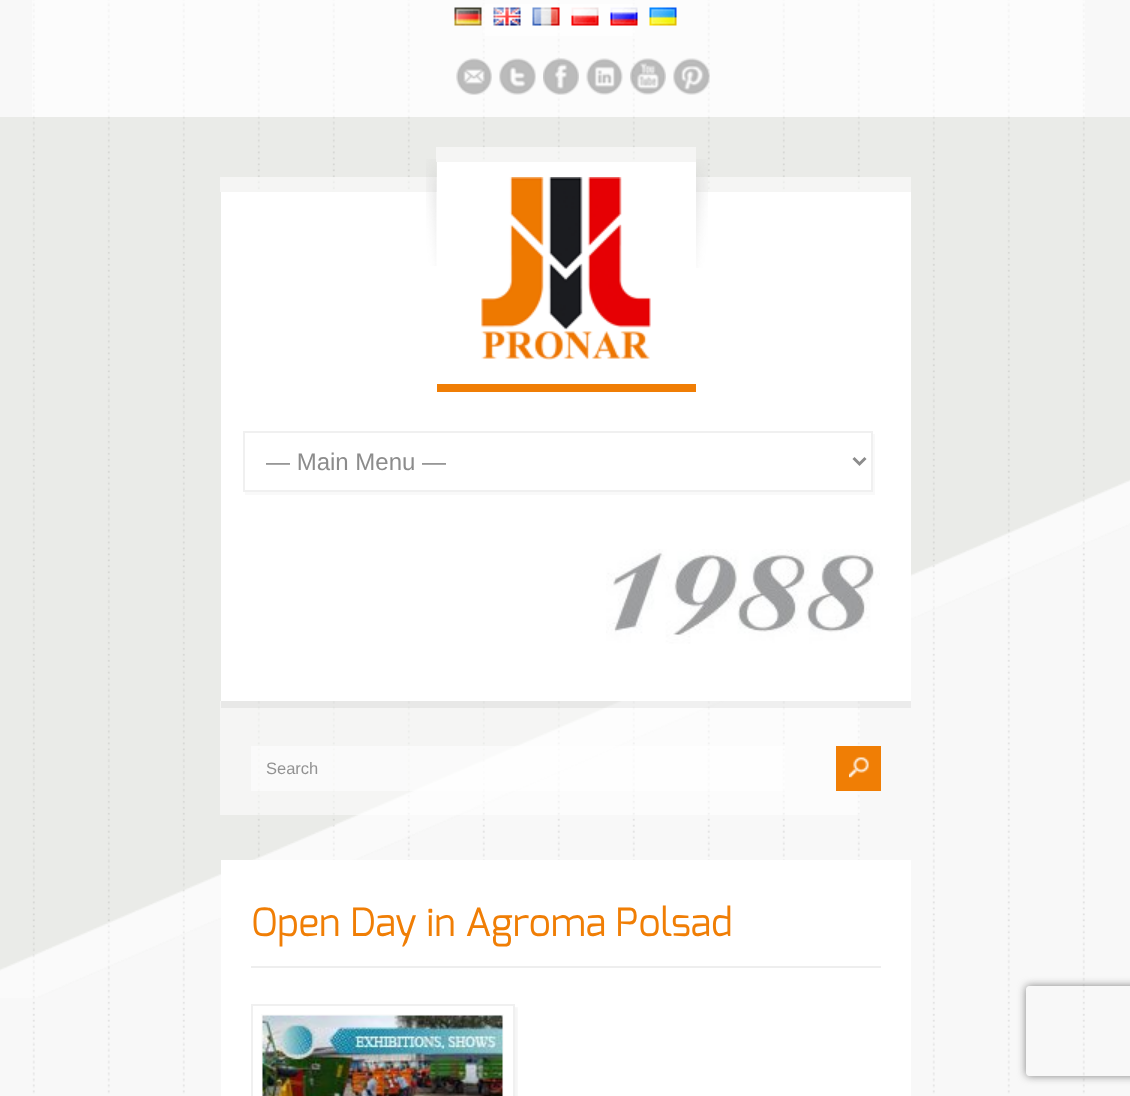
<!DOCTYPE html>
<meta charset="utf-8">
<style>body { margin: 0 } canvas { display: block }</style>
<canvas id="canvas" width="1130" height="1096"></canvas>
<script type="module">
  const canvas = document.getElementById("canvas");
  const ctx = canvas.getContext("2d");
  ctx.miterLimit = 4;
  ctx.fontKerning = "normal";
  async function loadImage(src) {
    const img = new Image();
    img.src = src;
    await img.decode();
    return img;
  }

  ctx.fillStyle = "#ffffff";
  ctx.fillRect(0, 0, 1130, 1096);
  ctx.drawImage(await loadImage("img1.png"), 0, 0, 1130, 1096);
  ctx.fillStyle = "rgba(255, 255, 255, 0.5)";
  ctx.fillRect(32, 0, 1053, 42);
  ctx.fillRect(483, 4, 152, 32);
  ctx.drawImage(await loadImage("img2.png"), 454, 7, 28, 19);
  ctx.drawImage(await loadImage("img3.png"), 493, 7, 28, 19);
  ctx.drawImage(await loadImage("img4.png"), 532, 7, 28, 19);
  ctx.drawImage(await loadImage("img5.png"), 571, 7, 28, 19);
  ctx.drawImage(await loadImage("img6.png"), 610, 7, 28, 19);
  ctx.drawImage(await loadImage("img7.png"), 649, 7, 28, 19);
  ctx.fillRect(32, 42, 1053, 75);
  ctx.drawImage(await loadImage("img8.png"), 456, 58, 36, 37);
  ctx.drawImage(await loadImage("img9.png"), 499, 58, 37, 37);
  ctx.drawImage(await loadImage("img10.png"), 543, 58, 36, 37);
  ctx.drawImage(await loadImage("img11.png"), 586, 58, 37, 37);
  ctx.drawImage(await loadImage("img12.png"), 630, 58, 36, 37);
  ctx.drawImage(await loadImage("img13.png"), 673, 58, 37, 37);
  ctx.save();
  ctx.beginPath();
  ctx.moveTo(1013, 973);
  ctx.lineTo(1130, 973);
  ctx.lineTo(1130, 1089);
  ctx.lineTo(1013, 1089);
  ctx.closePath();
  ctx.moveTo(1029, 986);
  ctx.lineTo(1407, 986);
  ctx.bezierCurveTo(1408.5, 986, 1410, 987.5, 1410, 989);
  ctx.lineTo(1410, 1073);
  ctx.bezierCurveTo(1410, 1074.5, 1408.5, 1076, 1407, 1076);
  ctx.lineTo(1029, 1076);
  ctx.bezierCurveTo(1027.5, 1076, 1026, 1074.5, 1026, 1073);
  ctx.lineTo(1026, 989);
  ctx.bezierCurveTo(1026, 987.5, 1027.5, 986, 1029, 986);
  ctx.closePath();
  ctx.clip("evenodd");
  ctx.fillStyle = "#808080";
  ctx.filter = "blur(4px)";
  ctx.beginPath();
  ctx.roundRect(1026, 986, 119, 90, 3);
  ctx.fill();
  ctx.filter = "none";
  ctx.restore();
  ctx.drawImage(await loadImage("img14.png"), 0, 117, 1130, 881);
  ctx.fillRect(220, 177, 691, 15);
  ctx.fillStyle = "#ffffff";
  ctx.fillRect(221, 192, 690, 509);
  ctx.drawImage(await loadImage("img15.png"), 426, 159, 11, 107);
  ctx.fillStyle = "#f07e05";
  ctx.fillRect(437, 384, 259, 8);
  ctx.fillStyle = "rgba(255, 255, 255, 0.5)";
  ctx.fillRect(436, 147, 260, 15);
  ctx.fillStyle = "#ffffff";
  ctx.fillRect(437, 162, 259, 30);
  ctx.drawImage(await loadImage("img16.png"), 481, 177, 170, 183);
  ctx.drawImage(await loadImage("img17.png"), 696, 159, 12, 109);
  ctx.fillStyle = "#f9f9f9";
  ctx.beginPath();
  ctx.moveTo(245, 492);
  ctx.lineTo(245, 495);
  ctx.lineTo(875, 495);
  ctx.lineTo(875, 434);
  ctx.lineTo(873, 434);
  ctx.lineTo(873, 492);
  ctx.closePath();
  ctx.fill();
  ctx.strokeStyle = "#f0f0f0";
  ctx.lineWidth = 2;
  ctx.strokeRect(244, 432, 628, 59);
  ctx.beginPath();
  ctx.moveTo(853.5, 458);
  ctx.lineTo(859.5, 464);
  ctx.lineTo(865.5, 458);
  ctx.strokeStyle = "#8c8c8c";
  ctx.lineWidth = 3;
  ctx.stroke();
  ctx.font = "24px Liberation Sans";
  ctx.fillStyle = "#8c8c8c";
  ctx.fillText("— Main Menu —", 266, 470);
  ctx.drawImage(await loadImage("img18.png"), 606, 549, 274, 95);
  ctx.fillStyle = "rgba(255, 255, 255, 0.5)";
  ctx.fillRect(220, 701, 640, 114);
  ctx.fillStyle = "rgba(0, 0, 0, 0.05)";
  ctx.fillRect(221, 701, 690, 7);
  ctx.fillStyle = "rgba(255, 255, 255, 0.5)";
  ctx.fillRect(251, 746, 534, 45);
  ctx.font = "16.5px Liberation Sans";
  ctx.fillStyle = "#929292";
  ctx.fillText("Search", 266, 774);
  ctx.fillStyle = "#f07e05";
  ctx.fillRect(836, 746, 45, 45);
  ctx.drawImage(await loadImage("img19.png"), 849, 757, 20, 21);
  ctx.fillStyle = "#ffffff";
  ctx.fillRect(221, 860, 690, 236);
  ctx.font = "39px Exo";
  ctx.fillStyle = "#f07e05";
  ctx.fillText("Open Day in Agroma Polsad", 251, 936);
  ctx.fillStyle = "#eeeeee";
  ctx.fillRect(251, 966, 630, 2);
  ctx.save();
  ctx.beginPath();
  ctx.rect(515, 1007, 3, 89);
  ctx.clip();
  ctx.fillStyle = "rgba(0, 0, 0, 0.04)";
  ctx.filter = "blur(1px)";
  ctx.beginPath();
  ctx.rect(254, 1007, 264, 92);
  ctx.fill();
  ctx.filter = "none";
  ctx.restore();
  ctx.strokeStyle = "#f0f0f0";
  ctx.lineWidth = 2;
  ctx.strokeRect(252, 1005, 262, 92);
  ctx.strokeStyle = "#fbfbfb";
  ctx.strokeRect(262, 1015, 241, 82);
  ctx.drawImage(await loadImage("img20.png"), 262, 1015, 241, 81);
</script>
